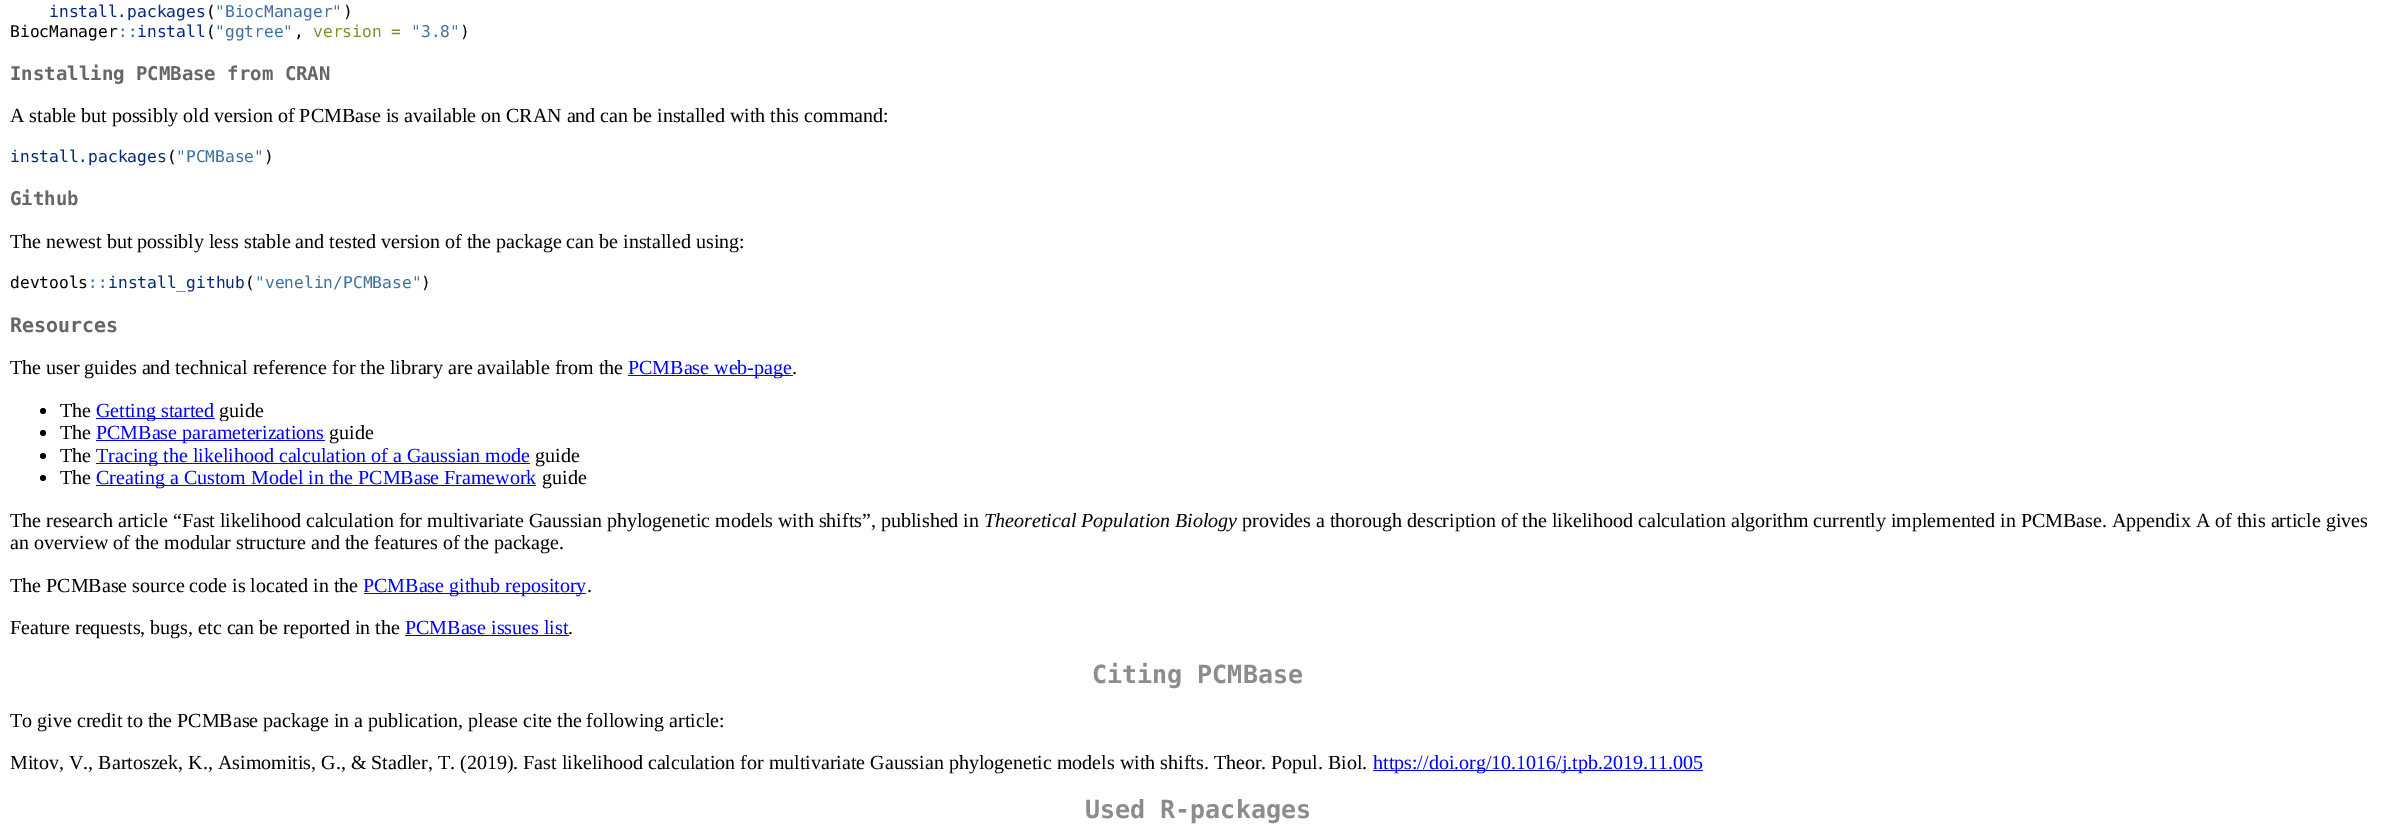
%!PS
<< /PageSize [2394 837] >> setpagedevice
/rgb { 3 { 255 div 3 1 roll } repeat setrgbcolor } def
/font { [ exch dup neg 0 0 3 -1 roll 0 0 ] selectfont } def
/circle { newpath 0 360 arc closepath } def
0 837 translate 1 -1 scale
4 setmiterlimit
255 255 255 rgb
0 0 2394 837 rectfill
0 0 255 rgb
628 375 165 1 rectfill
0 0 0 rgb
43 411 3 circle fill
0 0 255 rgb
96 418 119 1 rectfill
0 0 0 rgb
43 433 3 circle fill
0 0 255 rgb
96 440 229 1 rectfill
0 0 0 rgb
43 456 3 circle fill
0 0 255 rgb
96 463 434 1 rectfill
0 0 0 rgb
43 478 3 circle fill
[
  [96 485 440 1 0 0 255]
  [364 593 222 1 0 0 255]
  [405 635 164 1 0 0 255]
  [1373 770 330 1 0 0 255]
] { aload pop rgb rectfill } forall
/DejaVuSansMono-Regular 16.25 font
6 40 126 rgb
49 17 moveto (install.packages) show
0 0 0 rgb
206 17 moveto (\() show
64 112 160 rgb
215 17 moveto ("BiocManager") show
0 0 0 rgb
343 17 moveto (\)) show
10 37 moveto (BiocManager) show
64 112 160 rgb
118 37 moveto (::) show
6 40 126 rgb
137 37 moveto (install) show
0 0 0 rgb
206 37 moveto (\() show
64 112 160 rgb
215 37 moveto ("ggtree") show
0 0 0 rgb
294 37 moveto (,) show
125 144 41 rgb
313 37 moveto (version =) show
64 112 160 rgb
411 37 moveto ("3.8") show
0 0 0 rgb
460 37 moveto (\)) show
/DejaVuSansMono-Bold 19 font
102 102 102 rgb
10 80 moveto (Installing PCMBase from CRAN) show
/LiberationSerif-Regular 20 font
0 0 0 rgb
10 122 moveto (A stable but possibly old version of PCMBase is available on CRAN and can be installed with this command:) show
/DejaVuSansMono-Regular 16.25 font
6 40 126 rgb
10 162 moveto (install.packages) show
0 0 0 rgb
167 162 moveto (\() show
64 112 160 rgb
176 162 moveto ("PCMBase") show
0 0 0 rgb
264 162 moveto (\)) show
/DejaVuSansMono-Bold 19 font
102 102 102 rgb
10 205 moveto (Github) show
/LiberationSerif-Regular 20 font
0 0 0 rgb
10 248 moveto (The newest but possibly less stable and tested version of the package can be installed using:) show
/DejaVuSansMono-Regular 16.25 font
10 288 moveto (devtools) show
64 112 160 rgb
88 288 moveto (::) show
6 40 126 rgb
108 288 moveto (install_github) show
0 0 0 rgb
245 288 moveto (\() show
64 112 160 rgb
255 288 moveto ("venelin/PCMBase") show
0 0 0 rgb
421 288 moveto (\)) show
/DejaVuSansMono-Bold 20 font
102 102 102 rgb
10 332 moveto (Resources) show
/LiberationSerif-Regular 20 font
0 0 0 rgb
10 374 moveto (The user guides and technical reference for the library are available from the) show
0 0 255 rgb
628 374 moveto (PCMBase web-page) show
0 0 0 rgb
792 374 moveto (.) show
60 417 moveto (The) show
0 0 255 rgb
96 417 moveto (Getting started) show
0 0 0 rgb
219 417 moveto (guide) show
60 439 moveto (The) show
0 0 255 rgb
96 439 moveto (PCMBase parameterizations) show
255 255 255 rgb
148 421 79 1 rectfill
0 0 0 rgb
329 439 moveto (guide) show
60 462 moveto (The) show
0 0 255 rgb
96 462 moveto (Tracing the likelihood calculation of a Gaussian mode) show
0 0 0 rgb
535 462 moveto (guide) show
60 484 moveto (The) show
0 0 255 rgb
96 484 moveto (Creating a Custom Model in the PCMBase Framework) show
255 255 255 rgb
151 466 4 1 rectfill
0 0 0 rgb
542 484 moveto (guide) show
10 527 moveto (The research article “Fast likelihood calculation for multivariate Gaussian phylogenetic models with shifts”, published in) show
/LiberationSerif-Italic 20 font
984 527 moveto (Theoretical Population Biology) show
/LiberationSerif-Regular 20 font
[
  [(provides a thorough description of the likelihood calculation algorithm currently implemented in PCMBase. Appendix A of this article gives) 1242 527]
  [(an overview of the modular structure and the features of the package.) 10 549]
  [(The PCMBase source code is located in the) 10 592]
] { aload pop moveto show } forall
0 0 255 rgb
363 592 moveto (PCMBase github repository) show
0 0 0 rgb
587 592 moveto (.) show
10 634 moveto (Feature requests, bugs, etc can be reported in the) show
0 0 255 rgb
405 634 moveto (PCMBase issues list) show
0 0 0 rgb
568 634 moveto (.) show
/DejaVuSansMono-Bold 25 font
140 140 140 rgb
1092 683 moveto (Citing PCMBase) show
/LiberationSerif-Regular 20 font
0 0 0 rgb
10 727 moveto (To give credit to the PCMBase package in a publication, please cite the following article:) show
10 769 moveto (Mitov, V., Bartoszek, K., Asimomitis, G., & Stadler, T. \(2019\). Fast likelihood calculation for multivariate Gaussian phylogenetic models with shifts. Theor. Popul. Biol.) show
0 0 255 rgb
1373 769 moveto (https://doi.org/10.1016/j.tpb.2019.11.005) show
/DejaVuSansMono-Bold 25 font
140 140 140 rgb
1085 818 moveto (Used R-packages) show
showpage
